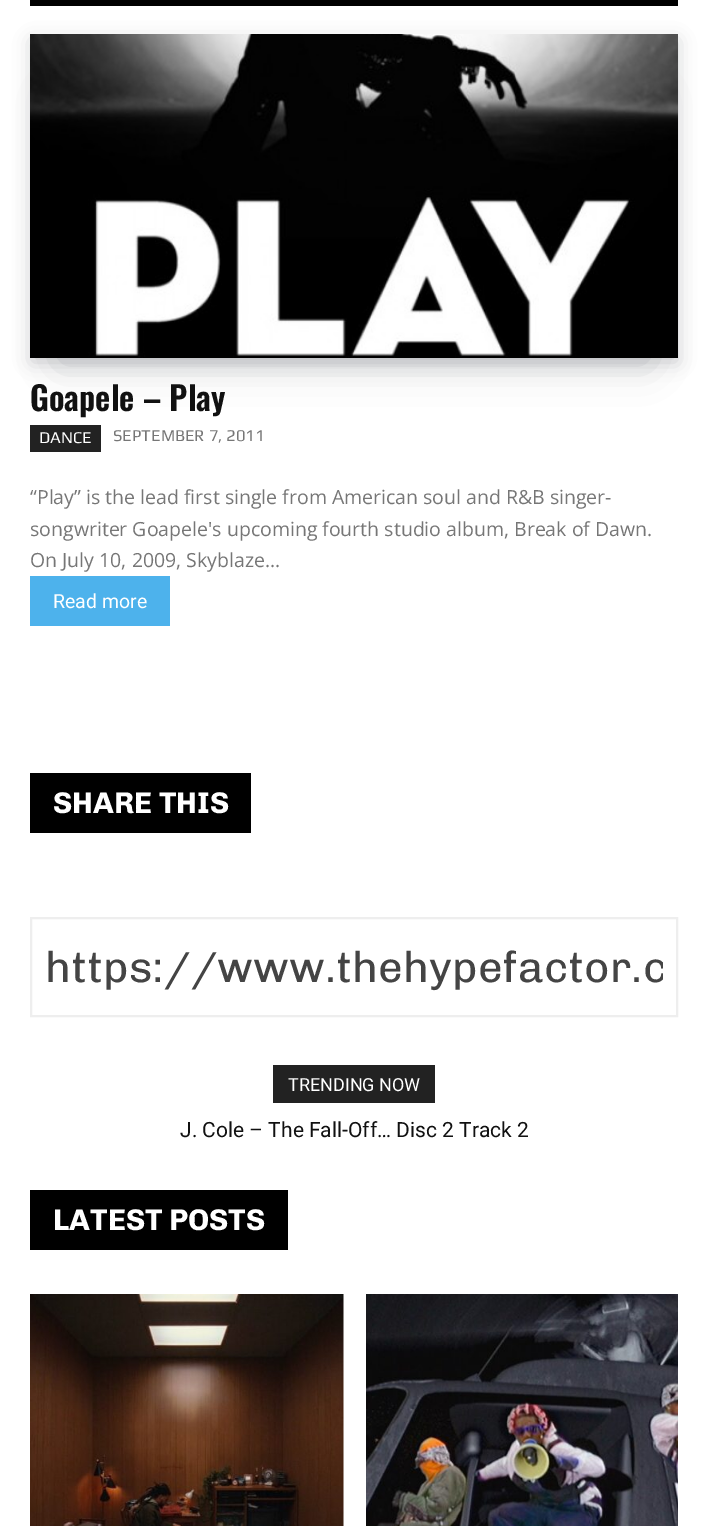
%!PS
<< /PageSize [708 1526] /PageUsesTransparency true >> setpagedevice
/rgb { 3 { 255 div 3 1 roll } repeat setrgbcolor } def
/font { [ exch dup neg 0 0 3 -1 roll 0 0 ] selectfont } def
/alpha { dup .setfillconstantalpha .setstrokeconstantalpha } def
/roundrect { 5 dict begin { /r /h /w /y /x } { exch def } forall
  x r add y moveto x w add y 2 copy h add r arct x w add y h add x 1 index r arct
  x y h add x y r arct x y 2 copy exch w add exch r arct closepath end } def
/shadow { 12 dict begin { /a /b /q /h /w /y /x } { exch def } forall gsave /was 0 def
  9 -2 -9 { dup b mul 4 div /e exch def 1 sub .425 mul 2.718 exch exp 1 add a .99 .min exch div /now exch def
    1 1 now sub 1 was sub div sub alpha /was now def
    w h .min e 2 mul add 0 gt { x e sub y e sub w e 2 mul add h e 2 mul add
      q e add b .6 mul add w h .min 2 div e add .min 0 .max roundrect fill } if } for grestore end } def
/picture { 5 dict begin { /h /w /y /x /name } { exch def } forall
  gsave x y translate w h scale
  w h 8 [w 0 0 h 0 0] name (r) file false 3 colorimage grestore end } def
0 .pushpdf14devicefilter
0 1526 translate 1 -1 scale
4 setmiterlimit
255 255 255 rgb
0 0 708 1526 rectfill
0 0 0 rgb
30 0 648 6 rectfill
7 10 25 rgb
60 98 588 264 0 20 0.2 shadow
32 41 645 321 0 9 0.2 shadow
(img/1.rgb) 30 34 648 324 picture
[
  [30 425 71 27 34 34 34]
  [30 576 140 50 77 178 236]
  [30 773 221 60 0 0 0]
] { aload pop rgb rectfill } forall
238 238 238 rgb
2 setlinewidth
31 918 646 98 rectstroke
34 34 34 rgb
273 1065 162 38 rectfill
0 0 0 rgb
30 1190 258 60 rectfill
(img/2.rgb) 30 1294 314 232 picture
(img/3.rgb) 366 1294 312 232 picture
/Oswald-SemiBold 33 font
17 17 17 rgb
30 411 moveto (Goapele – Play) show
/Play-Regular 16.5 font
255 255 255 rgb
39 443 moveto (DANCE) show
118 118 118 rgb
113 441 moveto (SEPTEMBER 7, 2011) show
/OpenSans-Regular 19.5 font
[
  [(“Play” is the lead first single from American soul and R&B singer-) 30 504]
  [(songwriter Goapele's upcoming fourth studio album, Break of Dawn.) 30 536]
  [(On July 10, 2009, Skyblaze...) 30 567]
] { aload pop moveto show } forall
/Roboto-Regular 19.5 font
255 255 255 rgb
53 608 moveto (Read more) show
/Chivo-Bold 30 font
53 813 moveto (SHARE THIS) show
gsave
45 942 618 51 rectclip
/Chivo-Regular 43.5 font
68 68 68 rgb
45 982 moveto (https://www.thehypefactor.c) show
grestore
/Roboto-Regular 18 font
288 1091 moveto (TRENDING NOW) show
/Roboto-Regular 21 font
17 17 17 rgb
180 1137 moveto (J. Cole – The Fall-Off… Disc 2 Track 2) show
/Chivo-Bold 30 font
255 255 255 rgb
53 1230 moveto (LATEST POSTS) show
.poppdf14devicefilter showpage
